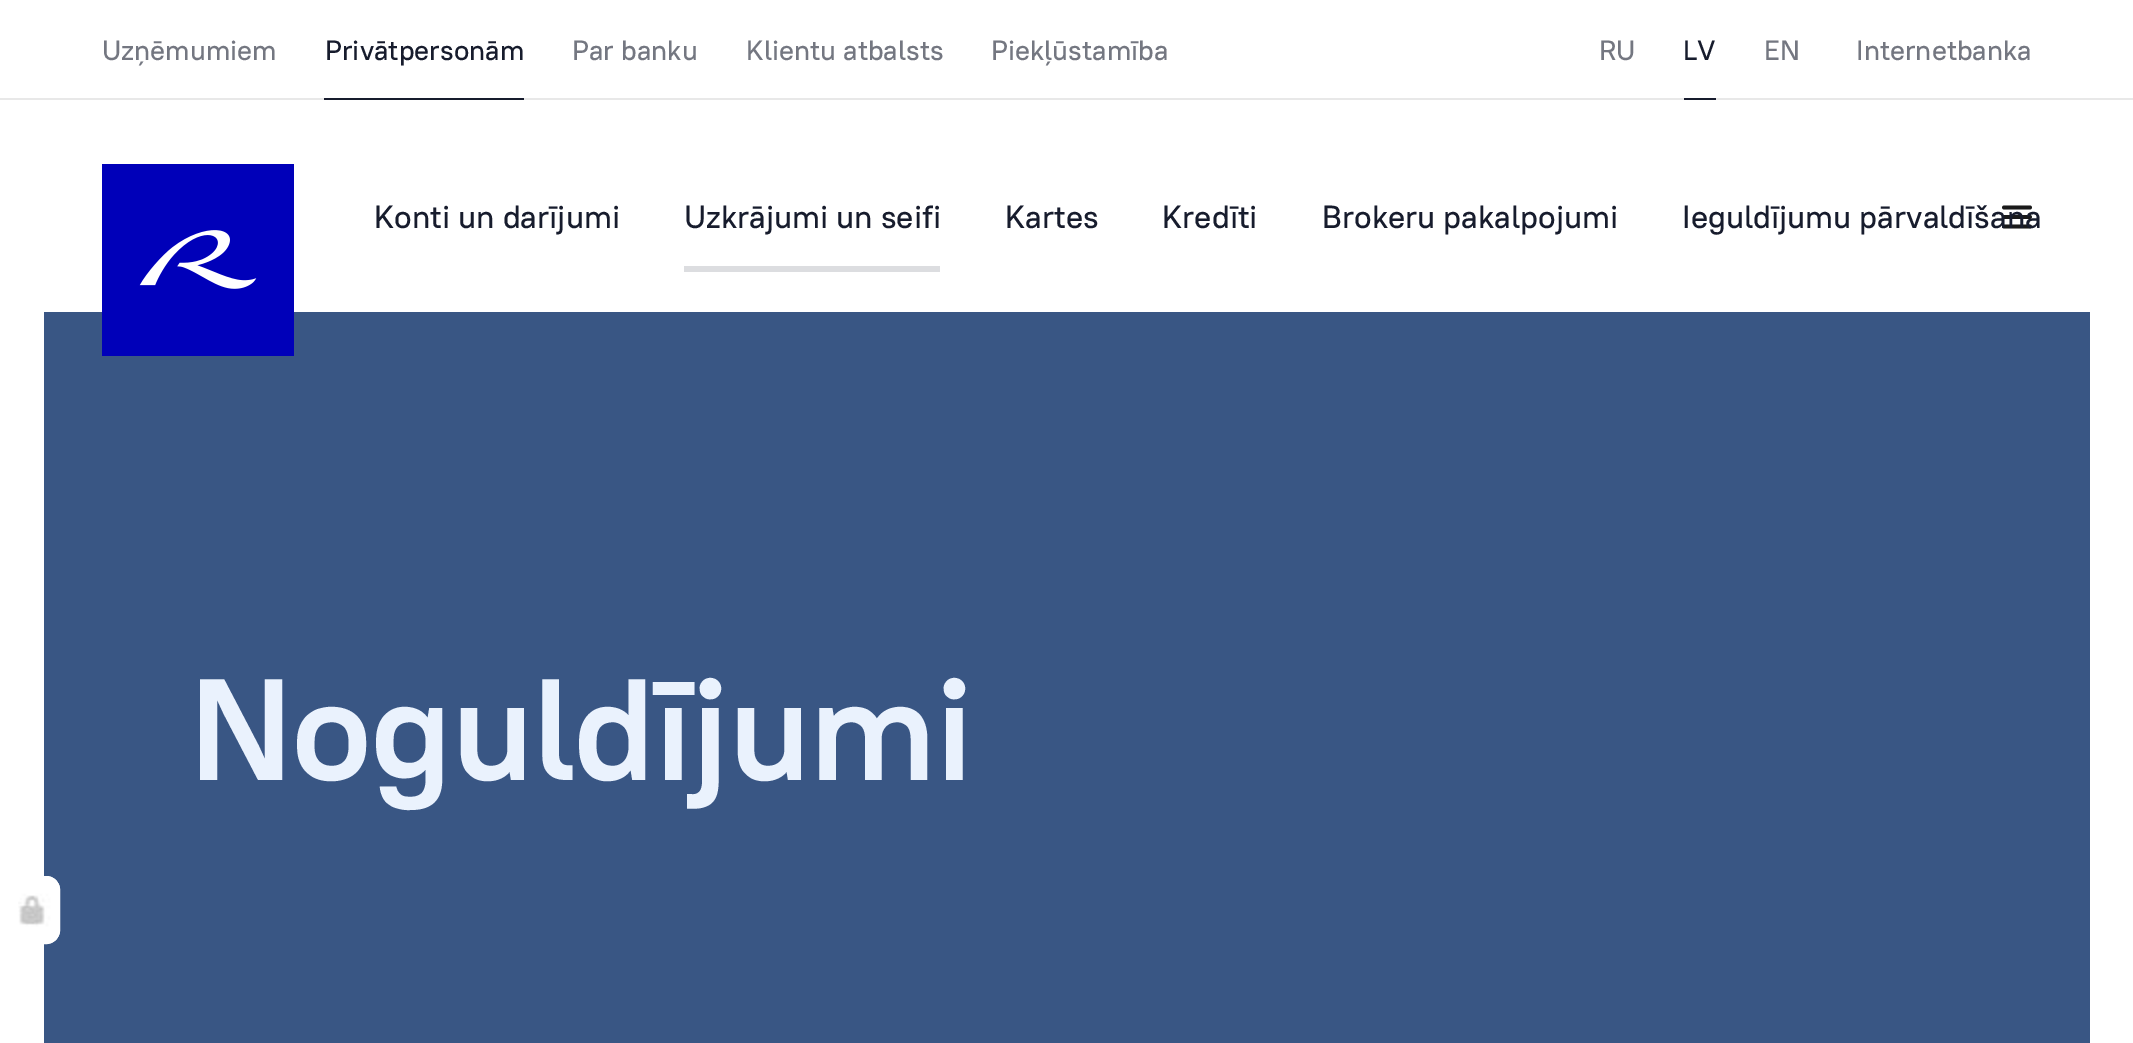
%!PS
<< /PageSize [2133 1043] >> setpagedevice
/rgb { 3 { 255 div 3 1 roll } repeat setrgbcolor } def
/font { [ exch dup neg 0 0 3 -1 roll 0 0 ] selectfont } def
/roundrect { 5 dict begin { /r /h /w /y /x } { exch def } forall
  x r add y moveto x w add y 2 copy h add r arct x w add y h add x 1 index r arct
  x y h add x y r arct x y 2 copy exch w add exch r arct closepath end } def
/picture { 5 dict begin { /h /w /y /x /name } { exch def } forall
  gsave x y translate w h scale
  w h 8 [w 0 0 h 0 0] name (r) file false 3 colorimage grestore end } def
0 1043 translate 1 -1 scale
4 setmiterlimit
255 255 255 rgb
0 0 2133 1043 rectfill
[
  [0 98 2133 2 232 232 232]
  [324 98 200 2 23 28 45]
  [1684 98 32 2 23 28 45]
  [44 312 2046 731 57 86 132]
  [102 164 192 192 0 0 185]
] { aload pop rgb rectfill } forall
(img/1.rgb) 139 230 118 59 picture
220 221 224 rgb
684 266 256 6 rectfill
26 26 26 rgb
3.8 setlinewidth
1 setlinecap
2004 207.5 moveto 2030 207.5 lineto 2004 217 moveto 2030 217 lineto 2004 226.5 moveto 2030 226.5 lineto stroke
255 255 255 rgb
0 876 60 68 14 roundrect fill
(img/2.rgb) 18 878 42 64 picture
2 setlinewidth
0 setlinecap
1 877 58 66 13 roundrect stroke
/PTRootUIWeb-Medium 28 font
116 119 129 rgb
102 60 moveto (Uzņēmumiem) show
23 28 45 rgb
325 60 moveto (Privātpersonām) show
116 119 129 rgb
[
  [(Par banku) 572 60]
  [(Klientu atbalsts) 746 60]
  [(Piekļūstamība) 991 60]
  [(RU) 1599 60]
] { aload pop moveto show } forall
23 28 45 rgb
1683 60 moveto (LV) show
116 119 129 rgb
1764 60 moveto (EN) show
1856 60 moveto (Internetbanka) show
/PTRootUIWeb-Medium 32 font
23 28 45 rgb
[
  [(Konti un darījumi) 374 228]
  [(Uzkrājumi un seifi) 684 228]
  [(Kartes) 1005 228]
  [(Kredīti) 1162 228]
  [(Brokeru pakalpojumi) 1322 228]
  [(Ieguldījumu pārvaldīšana) 1682 228]
] { aload pop moveto show } forall
/PTRootUIWeb-Bold 144 font
234 242 253 rgb
190 780 moveto (Noguldījumi) show
showpage
